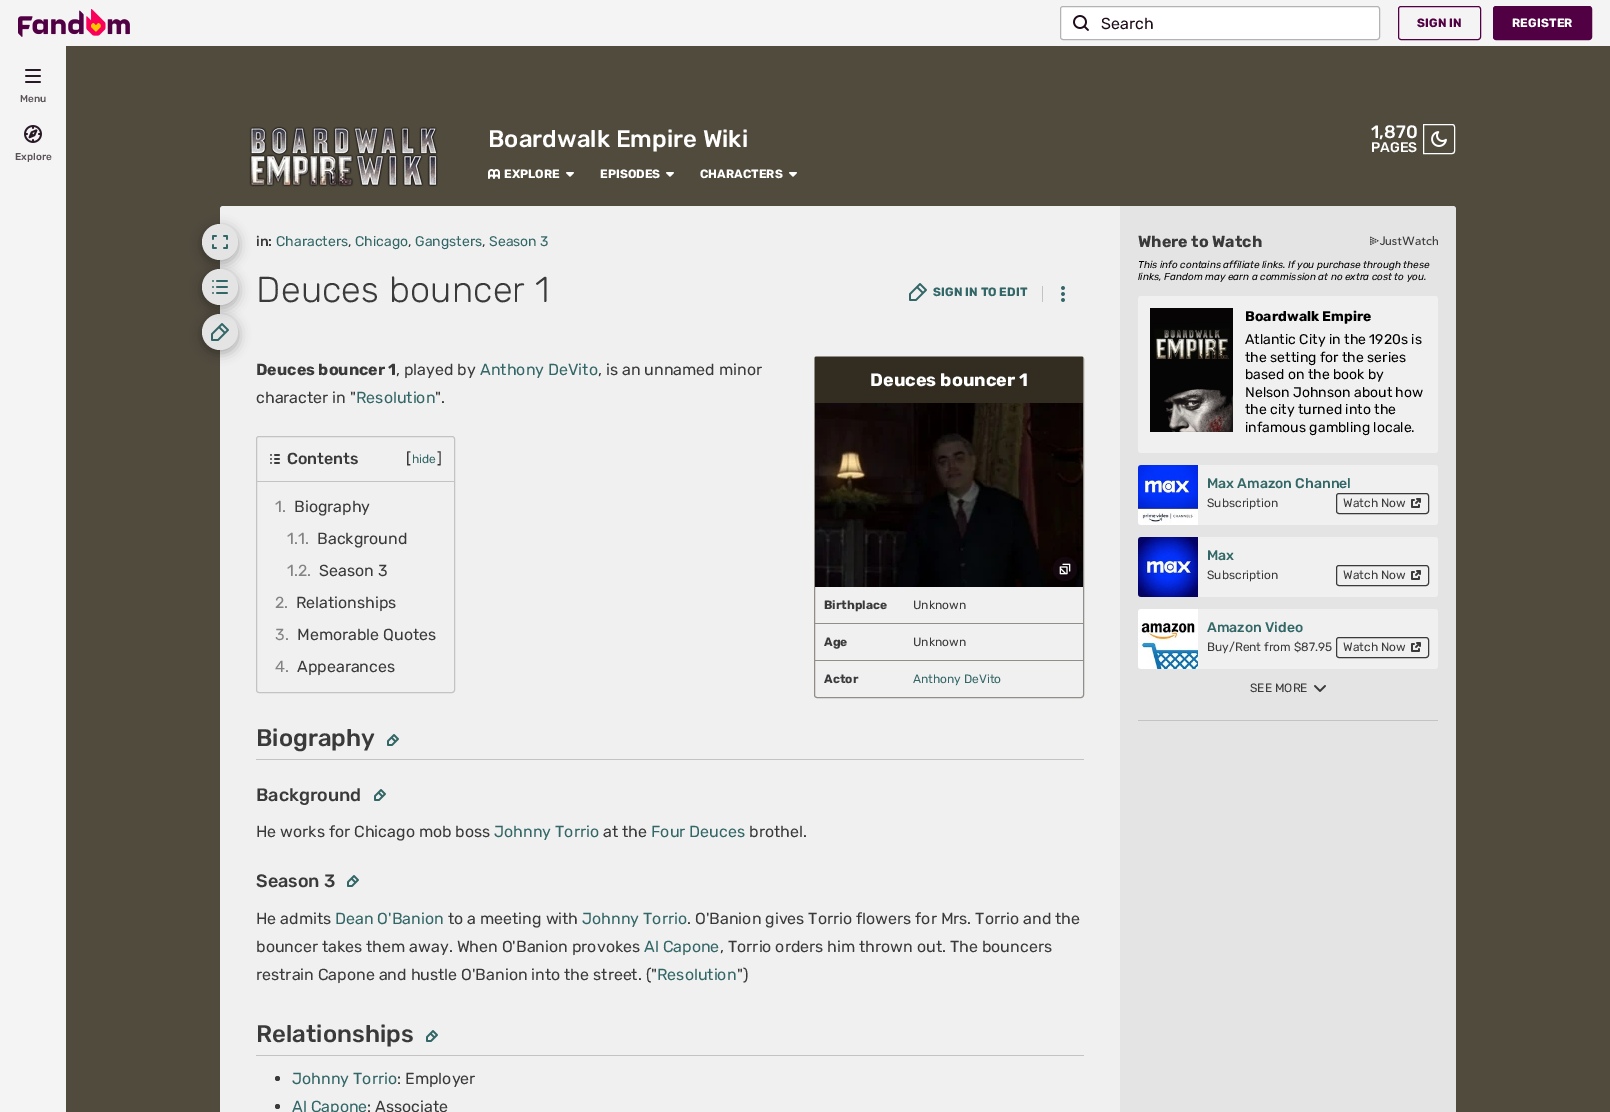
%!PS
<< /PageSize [1610 1112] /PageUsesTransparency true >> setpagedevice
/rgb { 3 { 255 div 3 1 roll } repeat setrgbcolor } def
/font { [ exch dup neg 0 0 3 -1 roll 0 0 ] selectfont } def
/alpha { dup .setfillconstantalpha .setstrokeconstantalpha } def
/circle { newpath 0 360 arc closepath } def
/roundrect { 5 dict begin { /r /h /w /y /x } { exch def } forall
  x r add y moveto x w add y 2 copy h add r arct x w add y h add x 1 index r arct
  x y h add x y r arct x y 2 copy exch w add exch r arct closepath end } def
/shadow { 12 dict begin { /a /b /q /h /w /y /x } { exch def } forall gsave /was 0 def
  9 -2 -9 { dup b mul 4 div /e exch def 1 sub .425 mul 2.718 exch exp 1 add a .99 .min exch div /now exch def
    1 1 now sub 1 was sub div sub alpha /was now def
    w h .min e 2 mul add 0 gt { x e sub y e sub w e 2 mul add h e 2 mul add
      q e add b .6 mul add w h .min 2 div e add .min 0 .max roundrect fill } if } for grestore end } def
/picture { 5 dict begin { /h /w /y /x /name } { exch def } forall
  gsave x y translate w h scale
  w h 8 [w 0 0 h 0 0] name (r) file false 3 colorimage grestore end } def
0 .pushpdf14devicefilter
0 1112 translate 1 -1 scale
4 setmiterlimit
81 75 62 rgb
0 0 1610 1112 rectfill
244 244 244 rgb
0 0 1610 46 rectfill
(img/1.rgb) 18 9 112 28 picture
255 255 255 rgb
1060.5 6.5 319 33 2.5 roundrect gsave fill grestore
179 179 179 rgb
stroke
(img/2.rgb) 1073 15 16 16 picture
82 0 68 rgb
1398.5 6.5 82 33 2.5 roundrect stroke
1493.5 6.5 98 33 2.5 roundrect gsave fill grestore
stroke
244 244 244 rgb
0 46 66 1066 rectfill
(img/3.rgb) 25 69 16 14 picture
(img/4.rgb) 24 125 18 18 picture
(img/5.rgb) 249 126 189 61 picture
255 255 255 rgb
1423.5 124.5 moveto 1452 124.5 lineto 1453.5 124.5 1454.5 125.5 1454.5 127 curveto 1454.5 151 lineto 1454.5 152.5 1453.5 153.5 1452 153.5 curveto 1423.5 153.5 lineto closepath stroke
(img/6.rgb) 1431 131 16 16 picture
(img/7.rgb) 488 169 12 10 picture
(img/8.rgb) 566 172 8 5 picture
(img/8.rgb) 666 172 8 5 picture
(img/8.rgb) 789 172 8 5 picture
240 240 240 rgb
223 206 moveto 1120 206 lineto 1120 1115 lineto 223 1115 lineto 221.5 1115 220 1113.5 220 1112 curveto 220 209 lineto 220 207.5 221.5 206 223 206 curveto closepath fill
0 0 0 rgb
202 227 36 36 18 6 0.3 shadow
228 228 228 rgb
220 242 18 circle fill
(img/9.rgb) 212 235 16 14 picture
0 0 0 rgb
202 317 36 36 18 6 0.3 shadow
228 228 228 rgb
220 332 18 circle fill
(img/11.rgb) 211 323 18 18 picture
0 0 0 rgb
202 272 36 36 18 6 0.3 shadow
228 228 228 rgb
220 287 18 circle fill
(img/10.rgb) 212 280 16 14 picture
(img/12.rgb) 909 283 18 18 picture
195 195 195 rgb
1042 286 1 16 rectfill
(img/13.rgb) 1061 286 4 16 picture
145 142 137 rgb
814.5 356.5 269 341 2.5 roundrect stroke
50 44 33 rgb
815 357 268 46 rectfill
(img/14.rgb) 815 403 268 184 picture
0.5 alpha
30 12 27 rgb
1065 569 12 circle fill
1 alpha
(img/15.rgb) 1059 563 12 12 picture
145 142 137 rgb
815 623 268 1 rectfill
815 660 268 1 rectfill
195 195 195 rgb
256.5 436.5 198 256 2.5 roundrect stroke
257 481 197 1 rectfill
(img/16.rgb) 270 454 10 10 picture
256 759 828 1 rectfill
(img/17.rgb) 387 734 12 12 picture
(img/17.rgb) 374 789 12 12 picture
(img/17.rgb) 347 875 12 12 picture
256 1055 828 1 rectfill
(img/17.rgb) 426 1030 12 12 picture
58 58 58 rgb
277.5 1078.5 2.5 circle fill
277.5 1106.5 2.5 circle fill
228 228 228 rgb
1120 206 moveto 1453 206 lineto 1454.5 206 1456 207.5 1456 209 curveto 1456 1112 lineto 1456 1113.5 1454.5 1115 1453 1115 curveto 1120 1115 lineto closepath fill
195 195 195 rgb
1138 720 300 1 rectfill
(img/18.rgb) 1370 236 68 10 picture
240 240 240 rgb
1138 296 300 157 3 roundrect fill
(img/19.rgb) 1150 308 83 124 picture
(img/20.rgb) 1138 465 60 60 picture
1198 465 moveto 1435 465 lineto 1436.5 465 1438 466.5 1438 468 curveto 1438 522 lineto 1438 523.5 1436.5 525 1435 525 curveto 1198 525 lineto closepath fill
58 58 58 rgb
1336.5 493.5 92 20 2.5 roundrect stroke
(img/21.rgb) 1411 498 10 10 picture
(img/22.rgb) 1138 537 60 60 picture
240 240 240 rgb
1198 537 moveto 1435 537 lineto 1436.5 537 1438 538.5 1438 540 curveto 1438 594 lineto 1438 595.5 1436.5 597 1435 597 curveto 1198 597 lineto closepath fill
58 58 58 rgb
1336.5 565.5 92 20 2.5 roundrect stroke
(img/21.rgb) 1411 570 10 10 picture
(img/23.rgb) 1138 609 60 60 picture
240 240 240 rgb
1198 609 moveto 1435 609 lineto 1436.5 609 1438 610.5 1438 612 curveto 1438 666 lineto 1438 667.5 1436.5 669 1435 669 curveto 1198 669 lineto closepath fill
58 58 58 rgb
1336.5 637.5 92 20 2.5 roundrect stroke
(img/21.rgb) 1411 642 10 10 picture
(img/24.rgb) 1314 685 12 7 picture
/Rubik-Regular 16 font
30 12 27 rgb
1101 29 moveto (Search) show
/Rubik-Bold 12 font
82 0 68 rgb
1417 27 moveto 0.1 0 (SIGN IN) ashow
255 255 255 rgb
1512 27 moveto 0.1 0 (REGISTER) ashow
/Rubik-Medium 10 font
89 83 88 rgb
20 102 moveto (Menu) show
15 160 moveto (Explore) show
/Rubik-Medium 24 font
255 255 255 rgb
488 147 moveto (Boardwalk Empire Wiki) show
/Rubik-Medium 18 font
1371 138 moveto (1,870) show
/Rubik-Medium 14 font
1371 152 moveto (PAGES) show
/Rubik-Bold 12 font
[
  [(EXPLORE) 504 178]
  [(EPISODES) 600 178]
  [(CHARACTERS) 700 178]
] { aload pop moveto show } forall
/Rubik-Medium 14 font
58 58 58 rgb
256 246 moveto (in:) show
/Rubik-Regular 14 font
51 102 102 rgb
276 246 moveto (Characters) show
58 58 58 rgb
348 246 moveto (,) show
51 102 102 rgb
355 246 moveto (Chicago) show
58 58 58 rgb
408 246 moveto (,) show
51 102 102 rgb
415 246 moveto (Gangsters) show
58 58 58 rgb
482 246 moveto (,) show
51 102 102 rgb
489 246 moveto (Season 3) show
/Rubik-Light 36 font
58 58 58 rgb
256 302 moveto 0.25 0 (Deuces bouncer 1) ashow
/Rubik-Bold 12 font
51 102 102 rgb
933 296 moveto 0.1 0 (SIGN IN TO EDIT) ashow
/Rubik-Bold 16 font
58 58 58 rgb
256 375 moveto (Deuces bouncer 1) show
/Rubik-Regular 16 font
396 375 moveto (, played by) show
51 102 102 rgb
480 375 moveto (Anthony DeVito) show
58 58 58 rgb
598 375 moveto (, is an unnamed minor) show
256 403 moveto (character in ") show
51 102 102 rgb
356 403 moveto (Resolution) show
58 58 58 rgb
435 403 moveto (".) show
/Rubik-Bold 18 font
255 255 255 rgb
870 386 moveto (Deuces bouncer 1) show
/Rubik-Bold 12 font
58 58 58 rgb
824 609 moveto (Birthplace) show
/Rubik-Regular 12 font
913 609 moveto (Unknown) show
/Rubik-Bold 12 font
824 646 moveto (Age) show
/Rubik-Regular 12 font
913 646 moveto (Unknown) show
/Rubik-Bold 12 font
824 683 moveto (Actor) show
/Rubik-Regular 12 font
51 102 102 rgb
913 683 moveto (Anthony DeVito) show
/Rubik-Medium 16 font
58 58 58 rgb
287 464 moveto (Contents) show
/Rubik-Regular 15 font
406 463 moveto ([) show
/Rubik-Regular 12 font
51 102 102 rgb
412 463 moveto (hide) show
/Rubik-Regular 15 font
58 58 58 rgb
437 463 moveto (]) show
/Rubik-Regular 16 font
131 131 131 rgb
275 512 moveto (1.) show
58 58 58 rgb
294 512 moveto (Biography) show
131 131 131 rgb
287 544 moveto (1.1.) show
58 58 58 rgb
317 544 moveto (Background) show
131 131 131 rgb
287 576 moveto (1.2.) show
58 58 58 rgb
319 576 moveto (Season 3) show
131 131 131 rgb
275 608 moveto (2.) show
58 58 58 rgb
296 608 moveto (Relationships) show
131 131 131 rgb
275 640 moveto (3.) show
58 58 58 rgb
297 640 moveto (Memorable Quotes) show
131 131 131 rgb
275 672 moveto (4.) show
58 58 58 rgb
297 672 moveto (Appearances) show
/Rubik-Medium 24 font
256 746 moveto (Biography) show
/Rubik-Medium 18 font
256 801 moveto (Background) show
/Rubik-Regular 16 font
256 837 moveto (He works for Chicago mob boss) show
51 102 102 rgb
494 837 moveto (Johnny Torrio) show
58 58 58 rgb
603 837 moveto (at the) show
51 102 102 rgb
651 837 moveto (Four Deuces) show
58 58 58 rgb
749 837 moveto (brothel.) show
/Rubik-Medium 18 font
256 887 moveto (Season 3) show
/Rubik-Regular 16 font
256 924 moveto (He admits) show
51 102 102 rgb
335 924 moveto (Dean O'Banion) show
58 58 58 rgb
448 924 moveto (to a meeting with) show
51 102 102 rgb
582 924 moveto (Johnny Torrio) show
58 58 58 rgb
687 924 moveto (. O'Banion gives Torrio flowers for Mrs. Torrio and the) show
256 952 moveto (bouncer takes them away. When O'Banion provokes) show
51 102 102 rgb
644 952 moveto (Al Capone) show
58 58 58 rgb
720 952 moveto (, Torrio orders him thrown out. The bouncers) show
256 980 moveto (restrain Capone and hustle O'Banion into the street. \(") show
51 102 102 rgb
657 980 moveto (Resolution) show
58 58 58 rgb
737 980 moveto ("\)) show
/Rubik-Medium 24 font
256 1042 moveto (Relationships) show
/Rubik-Regular 16 font
51 102 102 rgb
292 1084 moveto (Johnny Torrio) show
58 58 58 rgb
397 1084 moveto (: Employer) show
51 102 102 rgb
292 1112 moveto (Al Capone) show
58 58 58 rgb
367 1112 moveto (: Associate) show
/Rubik-Bold 16 font
1138 247 moveto (Where to Watch) show
/Rubik-Italic 10 font
0 0 0 rgb
1138 268 moveto (This info contains affiliate links. If you purchase through these) show
1138 280 moveto (links, Fandom may earn a commission at no extra cost to you.) show
/Rubik-Bold 14 font
1245 321 moveto (Boardwalk Empire) show
/Rubik-Regular 14 font
[
  [(Atlantic City in the 1920s is) 1245 344]
  [(the setting for the series) 1245 362]
  [(based on the book by) 1245 379]
  [(Nelson Johnson about how) 1245 397]
  [(the city turned into the) 1245 414]
  [(infamous gambling locale.) 1245 432]
] { aload pop moveto show } forall
/Rubik-Medium 14 font
51 102 102 rgb
1207 488 moveto (Max Amazon Channel) show
/Rubik-Regular 12 font
58 58 58 rgb
1207 507 moveto (Subscription) show
1343 507 moveto (Watch Now) show
/Rubik-Medium 14 font
51 102 102 rgb
1207 560 moveto (Max) show
/Rubik-Regular 12 font
58 58 58 rgb
1207 579 moveto (Subscription) show
1343 579 moveto (Watch Now) show
/Rubik-Medium 14 font
51 102 102 rgb
1207 632 moveto (Amazon Video) show
/Rubik-Regular 12 font
58 58 58 rgb
[
  [(Buy/Rent from $87.95) 1207 651]
  [(Watch Now) 1343 651]
  [(SEE MORE) 1250 692]
] { aload pop moveto show } forall
.poppdf14devicefilter showpage
